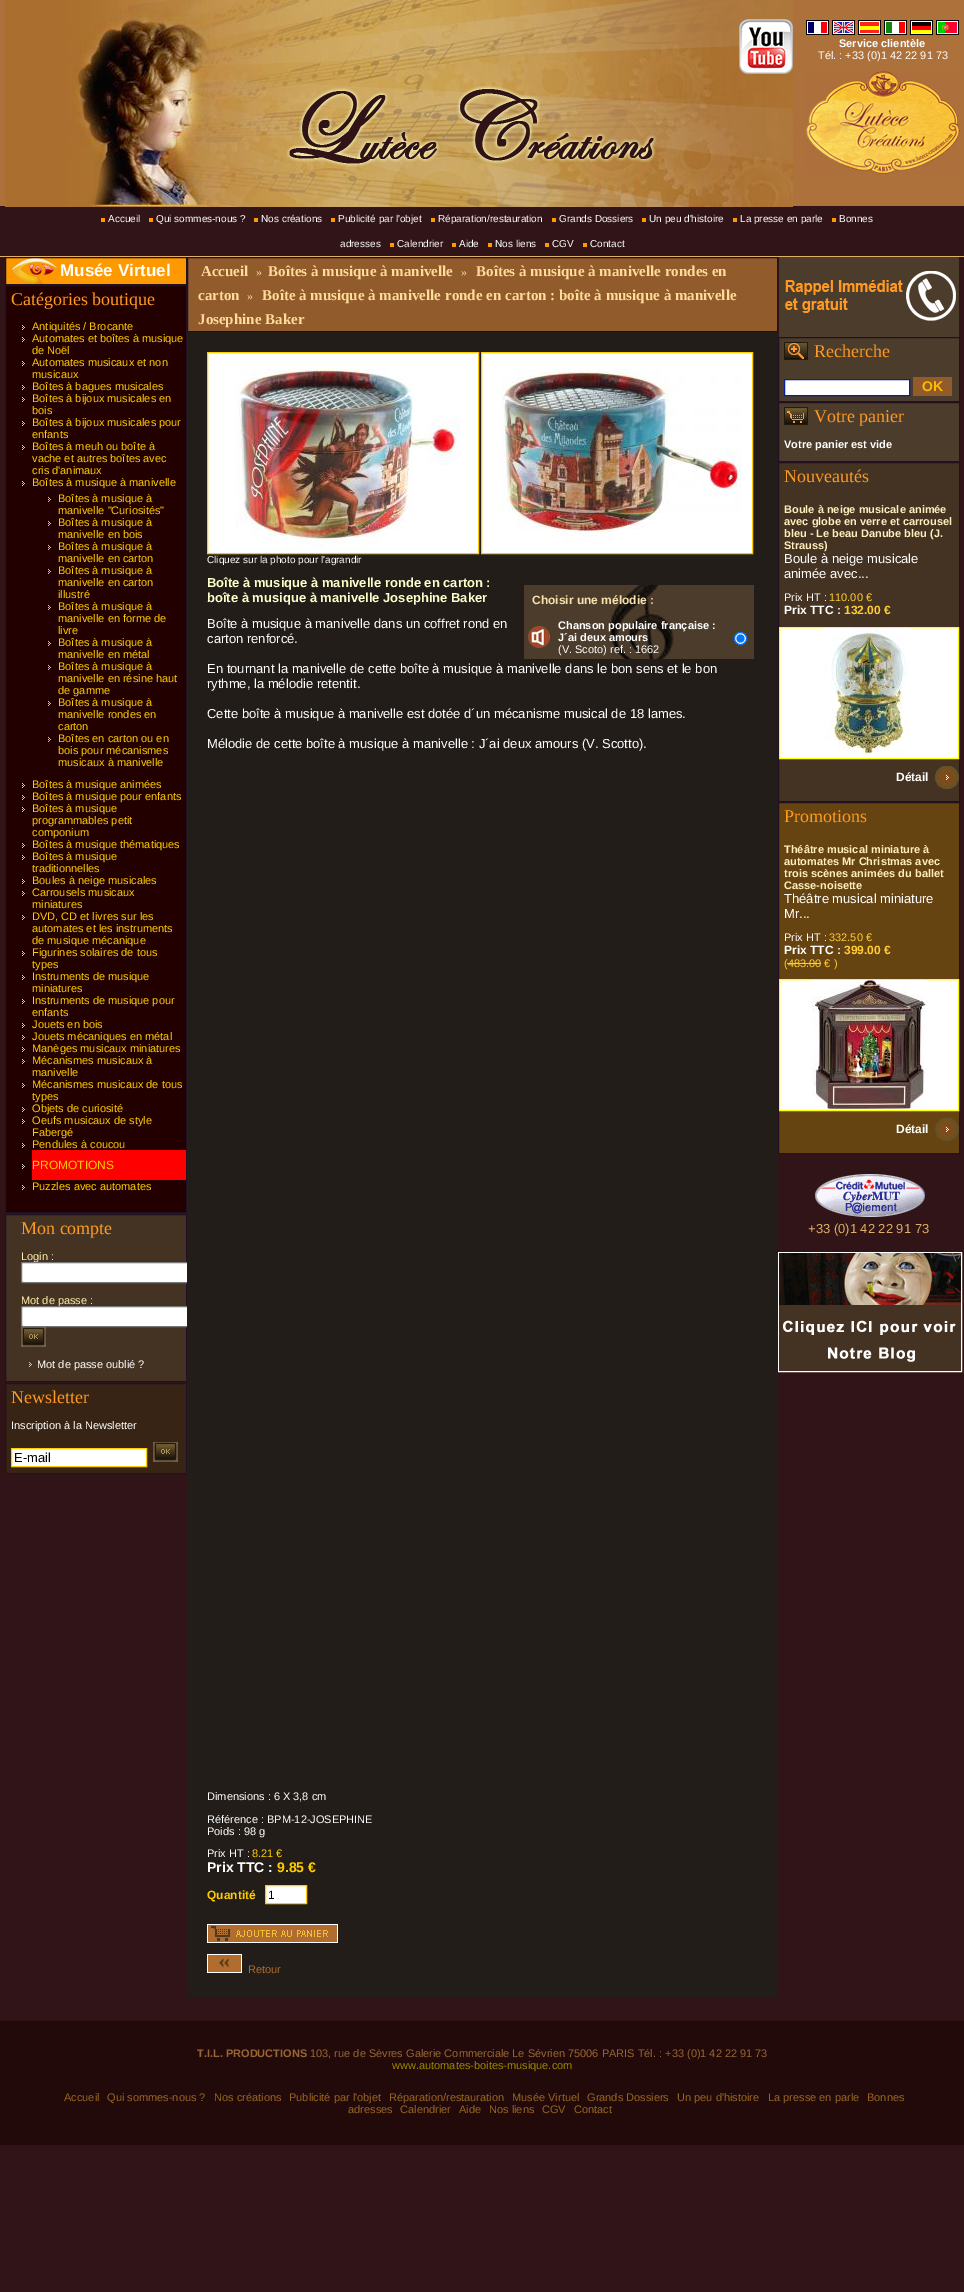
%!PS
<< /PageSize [964 2292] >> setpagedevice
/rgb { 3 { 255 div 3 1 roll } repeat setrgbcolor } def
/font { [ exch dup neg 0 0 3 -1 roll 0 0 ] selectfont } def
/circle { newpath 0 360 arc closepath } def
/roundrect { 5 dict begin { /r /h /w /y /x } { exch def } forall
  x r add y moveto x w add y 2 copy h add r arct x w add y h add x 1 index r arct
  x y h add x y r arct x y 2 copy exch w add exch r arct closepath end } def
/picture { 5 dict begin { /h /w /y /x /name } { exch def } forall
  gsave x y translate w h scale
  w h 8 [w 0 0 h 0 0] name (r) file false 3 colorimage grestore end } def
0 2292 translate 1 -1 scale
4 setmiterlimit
49 20 24 rgb
0 0 964 2292 rectfill
173 113 60 rgb
0 0 964 206 rectfill
(img/1.rgb) 5 0 788 207 picture
(img/2.rgb) 739 19 54 55 picture
(img/3.rgb) 806 20 23 15 picture
(img/4.rgb) 832 20 23 15 picture
(img/5.rgb) 858 20 23 15 picture
(img/6.rgb) 884 20 23 15 picture
(img/7.rgb) 910 20 23 15 picture
(img/8.rgb) 936 20 23 15 picture
(img/9.rgb) 806 71 154 103 picture
(img/10.rgb) 286 85 371 82 picture
[
  [0 256 964 1 223 175 101]
  [101 218 4 4 255 153 0]
  [149 218 4 4 255 153 0]
  [254 218 4 4 255 153 0]
  [331 218 4 4 255 153 0]
  [431 218 4 4 255 153 0]
  [552 218 4 4 255 153 0]
  [642 218 4 4 255 153 0]
  [733 218 4 4 255 153 0]
  [832 218 4 4 255 153 0]
  [390 243 4 4 255 153 0]
  [452 243 4 4 255 153 0]
  [488 243 4 4 255 153 0]
  [545 243 4 4 255 153 0]
  [583 243 4 4 255 153 0]
  [6 258 180 26 255 153 0]
] { aload pop rgb rectfill } forall
(img/11.rgb) 11 258 48 26 picture
34 17 34 rgb
5.5 257.5 181 27 rectstroke
34 0 0 rgb
5.5 285.5 moveto 186.5 285.5 lineto 186.5 1212.5 lineto 5.5 1212.5 lineto closepath gsave fill grestore
34 17 34 rgb
stroke
(img/12.rgb) 22 325 3 5 picture
(img/12.rgb) 22 337 3 5 picture
(img/12.rgb) 22 361 3 5 picture
(img/12.rgb) 22 385 3 5 picture
(img/12.rgb) 22 397 3 5 picture
(img/12.rgb) 22 421 3 5 picture
(img/12.rgb) 22 445 3 5 picture
(img/12.rgb) 22 481 3 5 picture
(img/12.rgb) 48 497 3 5 picture
(img/12.rgb) 48 521 3 5 picture
(img/12.rgb) 48 545 3 5 picture
(img/12.rgb) 48 569 3 5 picture
(img/12.rgb) 48 605 3 5 picture
(img/12.rgb) 48 641 3 5 picture
(img/12.rgb) 48 665 3 5 picture
(img/12.rgb) 48 701 3 5 picture
(img/12.rgb) 48 737 3 5 picture
(img/12.rgb) 22 783 3 5 picture
(img/12.rgb) 22 795 3 5 picture
(img/12.rgb) 22 807 3 5 picture
(img/12.rgb) 22 843 3 5 picture
(img/12.rgb) 22 855 3 5 picture
(img/12.rgb) 22 879 3 5 picture
(img/12.rgb) 22 891 3 5 picture
(img/12.rgb) 22 915 3 5 picture
(img/12.rgb) 22 951 3 5 picture
(img/12.rgb) 22 975 3 5 picture
(img/12.rgb) 22 999 3 5 picture
(img/12.rgb) 22 1023 3 5 picture
(img/12.rgb) 22 1035 3 5 picture
(img/12.rgb) 22 1047 3 5 picture
(img/12.rgb) 22 1059 3 5 picture
(img/12.rgb) 22 1083 3 5 picture
(img/12.rgb) 22 1107 3 5 picture
(img/12.rgb) 22 1119 3 5 picture
(img/12.rgb) 22 1143 3 5 picture
255 0 0 rgb
32 1150 154 30 rectfill
(img/12.rgb) 22 1164 3 5 picture
(img/12.rgb) 22 1185 3 5 picture
68 51 34 rgb
5.5 1214.5 moveto 186.5 1214.5 lineto 186.5 1381.5 lineto 5.5 1381.5 lineto closepath gsave fill grestore
34 17 34 rgb
stroke
(img/13.rgb) 21 1327 25 20 picture
(img/14.rgb) 29 1362 3 5 picture
55 36 21 rgb
5.5 1383.5 moveto 186.5 1383.5 lineto 186.5 1473.5 lineto 5.5 1473.5 lineto closepath gsave fill grestore
34 17 34 rgb
stroke
255 255 255 rgb
11.5 1448.5 moveto 146.5 1448.5 lineto 146.5 1466.5 lineto 11.5 1466.5 lineto closepath gsave fill grestore
255 204 0 rgb
stroke
(img/13.rgb) 153 1442 25 20 picture
145 91 44 rgb
187.5 257.5 moveto 777.5 257.5 lineto 777.5 331.5 lineto 187.5 331.5 lineto closepath gsave fill grestore
34 17 34 rgb
stroke
76 60 44 rgb
779 257 180 80 rectfill
(img/21.rgb) 785 271 171 50 picture
778.5 337.5 moveto 959.5 337.5 lineto 959.5 401.5 lineto 778.5 401.5 lineto closepath gsave fill grestore
34 17 34 rgb
stroke
(img/22.rgb) 784 342 24 18 picture
255 255 255 rgb
784.5 379.5 moveto 909.5 379.5 lineto 909.5 395.5 lineto 784.5 395.5 lineto closepath gsave fill grestore
0 34 170 rgb
stroke
145 91 44 rgb
913 377 39 19 rectfill
76 60 44 rgb
778.5 402.5 moveto 959.5 402.5 lineto 959.5 461.5 lineto 778.5 461.5 lineto closepath gsave fill grestore
34 17 34 rgb
stroke
(img/23.rgb) 784 407 24 18 picture
68 51 34 rgb
778.5 462.5 moveto 959.5 462.5 lineto 959.5 801.5 lineto 778.5 801.5 lineto closepath gsave fill grestore
34 17 34 rgb
stroke
255 255 255 rgb
779.5 627.5 moveto 958.5 627.5 lineto 958.5 758.5 lineto 779.5 758.5 lineto closepath gsave fill grestore
255 255 0 rgb
stroke
(img/24.rgb) 825 628 84 129 picture
(img/25.rgb) 935 766 24 23 picture
102 68 17 rgb
778.5 802.5 moveto 959.5 802.5 lineto 959.5 1153.5 lineto 778.5 1153.5 lineto closepath gsave fill grestore
34 17 34 rgb
stroke
255 204 51 rgb
787 963 34 1 rectfill
255 255 255 rgb
779.5 979.5 moveto 958.5 979.5 lineto 958.5 1110.5 lineto 779.5 1110.5 lineto closepath gsave fill grestore
255 255 0 rgb
stroke
(img/26.rgb) 812 980 114 130 picture
(img/27.rgb) 935 1118 24 23 picture
(img/28.rgb) 815 1174 110 43 picture
255 255 255 rgb
778.5 1252.5 183 119 rectstroke
(img/29.rgb) 779 1253 182 118 picture
34 10 10 rgb
0 2021 964 124 rectfill
/LiberationSans-Bold 11 font
255 255 255 rgb
839 47 moveto (Service clientèle) show
/LiberationSans-Regular 11 font
818 59 moveto (Tél. : +33 \(0\)1 42 22 91 73) show
/LiberationSans-Regular 10 font
[
  [(Accueil) 108 222]
  [(Qui sommes-nous ?) 156 222]
  [(Nos créations) 261 222]
  [(Publicité par l'objet) 338 222]
  [(Réparation/restauration) 438 222]
  [(Grands Dossiers) 559 222]
  [(Un peu d'histoire) 649 222]
  [(La presse en parle) 740 222]
  [(Bonnes) 839 222]
  [(adresses) 340 247]
  [(Calendrier) 397 247]
  [(Aide) 459 247]
  [(Nos liens) 495 247]
  [(CGV) 552 247]
  [(Contact) 590 247]
] { aload pop moveto show } forall
/LiberationSans-Bold 17 font
60 276 moveto (Musée Virtuel) show
/LiberationSerif-Regular 18 font
255 153 34 rgb
11 305 moveto (Catégories boutique) show
/LiberationSans-Regular 11 font
255 204 0 rgb
[
  [(Antiquités / Brocante) 32 330]
  [(Automates et boîtes à musique) 32 342]
  [(de Noël) 32 354]
  [(Automates musicaux et non) 32 366]
  [(musicaux) 32 378]
  [(Boîtes à bagues musicales) 32 390]
  [(Boîtes à bijoux musicales en) 32 402]
  [(bois) 32 414]
  [(Boîtes à bijoux musicales pour) 32 426]
  [(enfants) 32 438]
  [(Boîtes à meuh ou boîte à) 32 450]
  [(vache et autres boîtes avec) 32 462]
  [(cris d'animaux) 32 474]
  [(Boîtes à musique à manivelle) 32 486]
  [(Boîtes à musique à) 58 502]
  [(manivelle "Curiosités") 58 514]
  [(Boîtes à musique à) 58 526]
  [(manivelle en bois) 58 538]
  [(Boîtes à musique à) 58 550]
  [(manivelle en carton) 58 562]
  [(Boîtes à musique à) 58 574]
  [(manivelle en carton) 58 586]
  [(illustré) 58 598]
  [(Boîtes à musique à) 58 610]
  [(manivelle en forme de) 58 622]
  [(livre) 58 634]
  [(Boîtes à musique à) 58 646]
  [(manivelle en métal) 58 658]
  [(Boîtes à musique à) 58 670]
  [(manivelle en résine haut) 58 682]
  [(de gamme) 58 694]
  [(Boîtes à musique à) 58 706]
  [(manivelle rondes en) 58 718]
  [(carton) 58 730]
  [(Boîtes en carton ou en) 58 742]
  [(bois pour mécanismes) 58 754]
  [(musicaux à manivelle) 58 766]
  [(Boîtes à musique animées) 32 788]
  [(Boîtes à musique pour enfants) 32 800]
  [(Boîtes à musique) 32 812]
  [(programmables petit) 32 824]
  [(componium) 32 836]
  [(Boîtes à musique thématiques) 32 848]
  [(Boîtes à musique) 32 860]
  [(traditionnelles) 32 872]
  [(Boules à neige musicales) 32 884]
  [(Carrousels musicaux) 32 896]
  [(miniatures) 32 908]
  [(DVD, CD et livres sur les) 32 920]
  [(automates et les instruments) 32 932]
  [(de musique mécanique) 32 944]
  [(Figurines solaires de tous) 32 956]
  [(types) 32 968]
  [(Instruments de musique) 32 980]
  [(miniatures) 32 992]
  [(Instruments de musique pour) 32 1004]
  [(enfants) 32 1016]
  [(Jouets en bois) 32 1028]
  [(Jouets mécaniques en métal) 32 1040]
  [(Manèges musicaux miniatures) 32 1052]
  [(Mécanismes musicaux à) 32 1064]
  [(manivelle) 32 1076]
  [(Mécanismes musicaux de tous) 32 1088]
  [(types) 32 1100]
  [(Objets de curiosité) 32 1112]
  [(Oeufs musicaux de style) 32 1124]
  [(Fabergé) 32 1136]
  [(Pendules à coucou) 32 1148]
] { aload pop moveto show } forall
/LiberationSans-Regular 12 font
32 1169 moveto (PROMOTIONS) show
/LiberationSans-Regular 11 font
32 1190 moveto (Puzzles avec automates) show
/LiberationSerif-Regular 18 font
255 153 34 rgb
21 1234 moveto (Mon compte) show
/LiberationSans-Regular 11 font
255 238 170 rgb
21 1260 moveto (Login :) show
255 255 255 rgb
21.5 1262.5 168 20 1.5 roundrect gsave fill grestore
118 118 118 rgb
stroke
255 238 170 rgb
21 1304 moveto (Mot de passe :) show
255 255 255 rgb
21.5 1306.5 168 20 1.5 roundrect gsave fill grestore
118 118 118 rgb
stroke
255 255 255 rgb
37 1368 moveto (Mot de passe oublié ?) show
/LiberationSerif-Regular 18 font
255 153 34 rgb
11 1403 moveto (Newsletter) show
/LiberationSans-Regular 11 font
255 255 255 rgb
11 1429 moveto (Inscription à la Newsletter) show
/LiberationSans-Regular 13 font
0 0 0 rgb
14 1462 moveto (E-mail) show
/LiberationSerif-Bold 15 font
255 221 153 rgb
201 276 moveto (Accueil) show
/LiberationSerif-Regular 12 font
256 276 moveto (») show
/LiberationSerif-Bold 15 font
268 276 moveto (Boîtes à musique à manivelle) show
/LiberationSerif-Regular 12 font
461 276 moveto (») show
/LiberationSerif-Bold 15 font
476 276 moveto (Boîtes à musique à manivelle rondes en) show
198 300 moveto (carton) show
/LiberationSerif-Regular 12 font
247 300 moveto (») show
/LiberationSerif-Bold 15 font
262 300 moveto (Boîte à musique à manivelle ronde en carton : boîte à musique à manivelle) show
198 324 moveto (Josephine Baker) show
34 29 25 rgb
187 332 591 1665 rectfill
255 255 255 rgb
207.5 352.5 moveto 478.5 352.5 lineto 478.5 553.5 lineto 207.5 553.5 lineto closepath gsave fill grestore
255 204 0 rgb
stroke
(img/15.rgb) 236 368 224 181 picture
255 255 255 rgb
481.5 352.5 moveto 752.5 352.5 lineto 752.5 553.5 lineto 481.5 553.5 lineto closepath gsave fill grestore
255 204 0 rgb
stroke
(img/16.rgb) 500 369 242 175 picture
/LiberationSans-Regular 10 font
255 255 255 rgb
207 563 moveto (Cliquez sur la photo pour l'agrandir) show
/LiberationSans-Bold 13 font
255 255 204 rgb
207 587 moveto (Boîte à musique à manivelle ronde en carton :) show
207 602 moveto (boîte à musique à manivelle Josephine Baker) show
76 60 44 rgb
524 585 230 74 rectfill
(img/17.rgb) 609 585 66 74 picture
/LiberationSans-Bold 12 font
247 224 172 rgb
532 604 moveto (Choisir une mélodie :) show
(img/18.rgb) 528 626 22 22 picture
/LiberationSans-Bold 11 font
255 255 255 rgb
558 629 moveto (Chanson populaire française :) show
558 641 moveto (J´ai deux amours) show
/LiberationSans-Regular 11 font
558 653 moveto (\(V. Scoto\) ref. : 1662) show
740.5 638.5 6 circle gsave fill grestore
0 117 255 rgb
stroke
740.5 638.5 4 circle fill
/LiberationSans-Regular 13 font
255 255 255 rgb
[
  [(Boîte à musique à manivelle dans un coffret rond en) 207 628]
  [(carton renforcé.) 207 643]
  [(En tournant la manivelle de cette boîte à musique à manivelle dans le bon sens et le bon) 207 673]
  [(rythme, la mélodie retentit.) 207 688]
  [(Cette boîte à musique à manivelle est dotée d´un mécanisme musical de 18 lames.) 207 718]
  [(Mélodie de cette boîte à musique à manivelle : J´ai deux amours \(V. Scotto\).) 207 748]
] { aload pop moveto show } forall
/LiberationSans-Regular 11 font
[
  [(Dimensions : 6 X 3,8 cm) 207 1800]
  [(Référence : BPM-12-JOSEPHINE) 207 1823]
  [(Poids : 98 g) 207 1835]
  [(Prix HT :) 207 1857]
] { aload pop moveto show } forall
255 204 0 rgb
252 1857 moveto (8.21 €) show
/LiberationSans-Bold 14 font
255 255 255 rgb
207 1872 moveto (Prix TTC :) show
255 204 0 rgb
277 1872 moveto (9.85 €) show
/LiberationSans-Bold 12 font
207 1899 moveto (Quantité) show
255 255 255 rgb
265.5 1885.5 moveto 306.5 1885.5 lineto 306.5 1903.5 lineto 265.5 1903.5 lineto closepath gsave fill grestore
255 204 0 rgb
stroke
/LiberationSans-Regular 12 font
0 0 0 rgb
268 1899 moveto (1) show
(img/19.rgb) 207 1924 131 19 picture
(img/20.rgb) 207 1954 35 19 picture
/LiberationSans-Regular 11 font
177 109 47 rgb
248 1973 moveto (Retour) show
/LiberationSerif-Regular 18 font
255 153 34 rgb
814 357 moveto (Recherche) show
/LiberationSans-Bold 14 font
255 187 0 rgb
922 391 moveto (OK) show
/LiberationSerif-Regular 18 font
255 153 34 rgb
814 422 moveto (Votre panier) show
/LiberationSans-Bold 11 font
255 255 255 rgb
784 448 moveto (Votre panier est vide) show
/LiberationSerif-Regular 18 font
255 153 34 rgb
784 482 moveto (Nouveautés) show
/LiberationSans-Bold 11 font
255 238 187 rgb
[
  [(Boule à neige musicale animée) 784 513]
  [(avec globe en verre et carrousel) 784 525]
  [(bleu - Le beau Danube bleu \(J.) 784 537]
  [(Strauss\)) 784 549]
] { aload pop moveto show } forall
/LiberationSans-Regular 13 font
255 255 255 rgb
784 563 moveto (Boule à neige musicale) show
784 578 moveto (animée avec...) show
/LiberationSans-Regular 11 font
784 601 moveto (Prix HT :) show
255 204 51 rgb
829 601 moveto (110.00 €) show
/LiberationSans-Bold 12 font
255 255 255 rgb
784 614 moveto (Prix TTC :) show
255 204 51 rgb
844 614 moveto (132.00 €) show
255 255 255 rgb
896 781 moveto (Détail) show
/LiberationSerif-Regular 18 font
255 153 34 rgb
784 822 moveto (Promotions) show
/LiberationSans-Bold 11 font
255 238 187 rgb
[
  [(Théâtre musical miniature à) 784 853]
  [(automates Mr Christmas avec) 784 865]
  [(trois scènes animées du ballet) 784 877]
  [(Casse-noisette) 784 889]
] { aload pop moveto show } forall
/LiberationSans-Regular 13 font
255 255 255 rgb
784 903 moveto (Théâtre musical miniature) show
784 918 moveto (Mr...) show
/LiberationSans-Regular 11 font
784 941 moveto (Prix HT :) show
255 204 51 rgb
829 941 moveto (332.50 €) show
/LiberationSans-Bold 12 font
255 255 255 rgb
784 954 moveto (Prix TTC :) show
255 204 51 rgb
844 954 moveto (399.00 €) show
/LiberationSans-Regular 11 font
784 967 moveto (\(483.00 € \)) show
/LiberationSans-Bold 12 font
255 255 255 rgb
896 1133 moveto (Détail) show
/LiberationSans-Regular 13 font
223 175 101 rgb
808 1233 moveto (+33 \(0\)1 42 22 91 73) show
/LiberationSans-Bold 11 font
153 102 51 rgb
197 2057 moveto (T.I.L. PRODUCTIONS) show
/LiberationSans-Regular 11 font
310 2057 moveto (103, rue de Sèvres Galerie Commerciale Le Sévrien 75006 PARIS Tél. : +33 \(0\)1 42 22 91 73) show
153 136 0 rgb
392 2069 moveto (www.automates-boites-musique.com) show
153 102 34 rgb
[
  [(Accueil) 64 2101]
  [(Qui sommes-nous ?) 107 2101]
  [(Nos créations) 214 2101]
  [(Publicité par l'objet) 289 2101]
  [(Réparation/restauration) 389 2101]
  [(Musée Virtuel) 512 2101]
  [(Grands Dossiers) 587 2101]
  [(Un peu d'histoire) 677 2101]
  [(La presse en parle) 768 2101]
  [(Bonnes) 867 2101]
  [(adresses) 348 2113]
  [(Calendrier) 400 2113]
  [(Aide) 459 2113]
  [(Nos liens) 489 2113]
  [(CGV) 542 2113]
  [(Contact) 574 2113]
] { aload pop moveto show } forall
showpage
